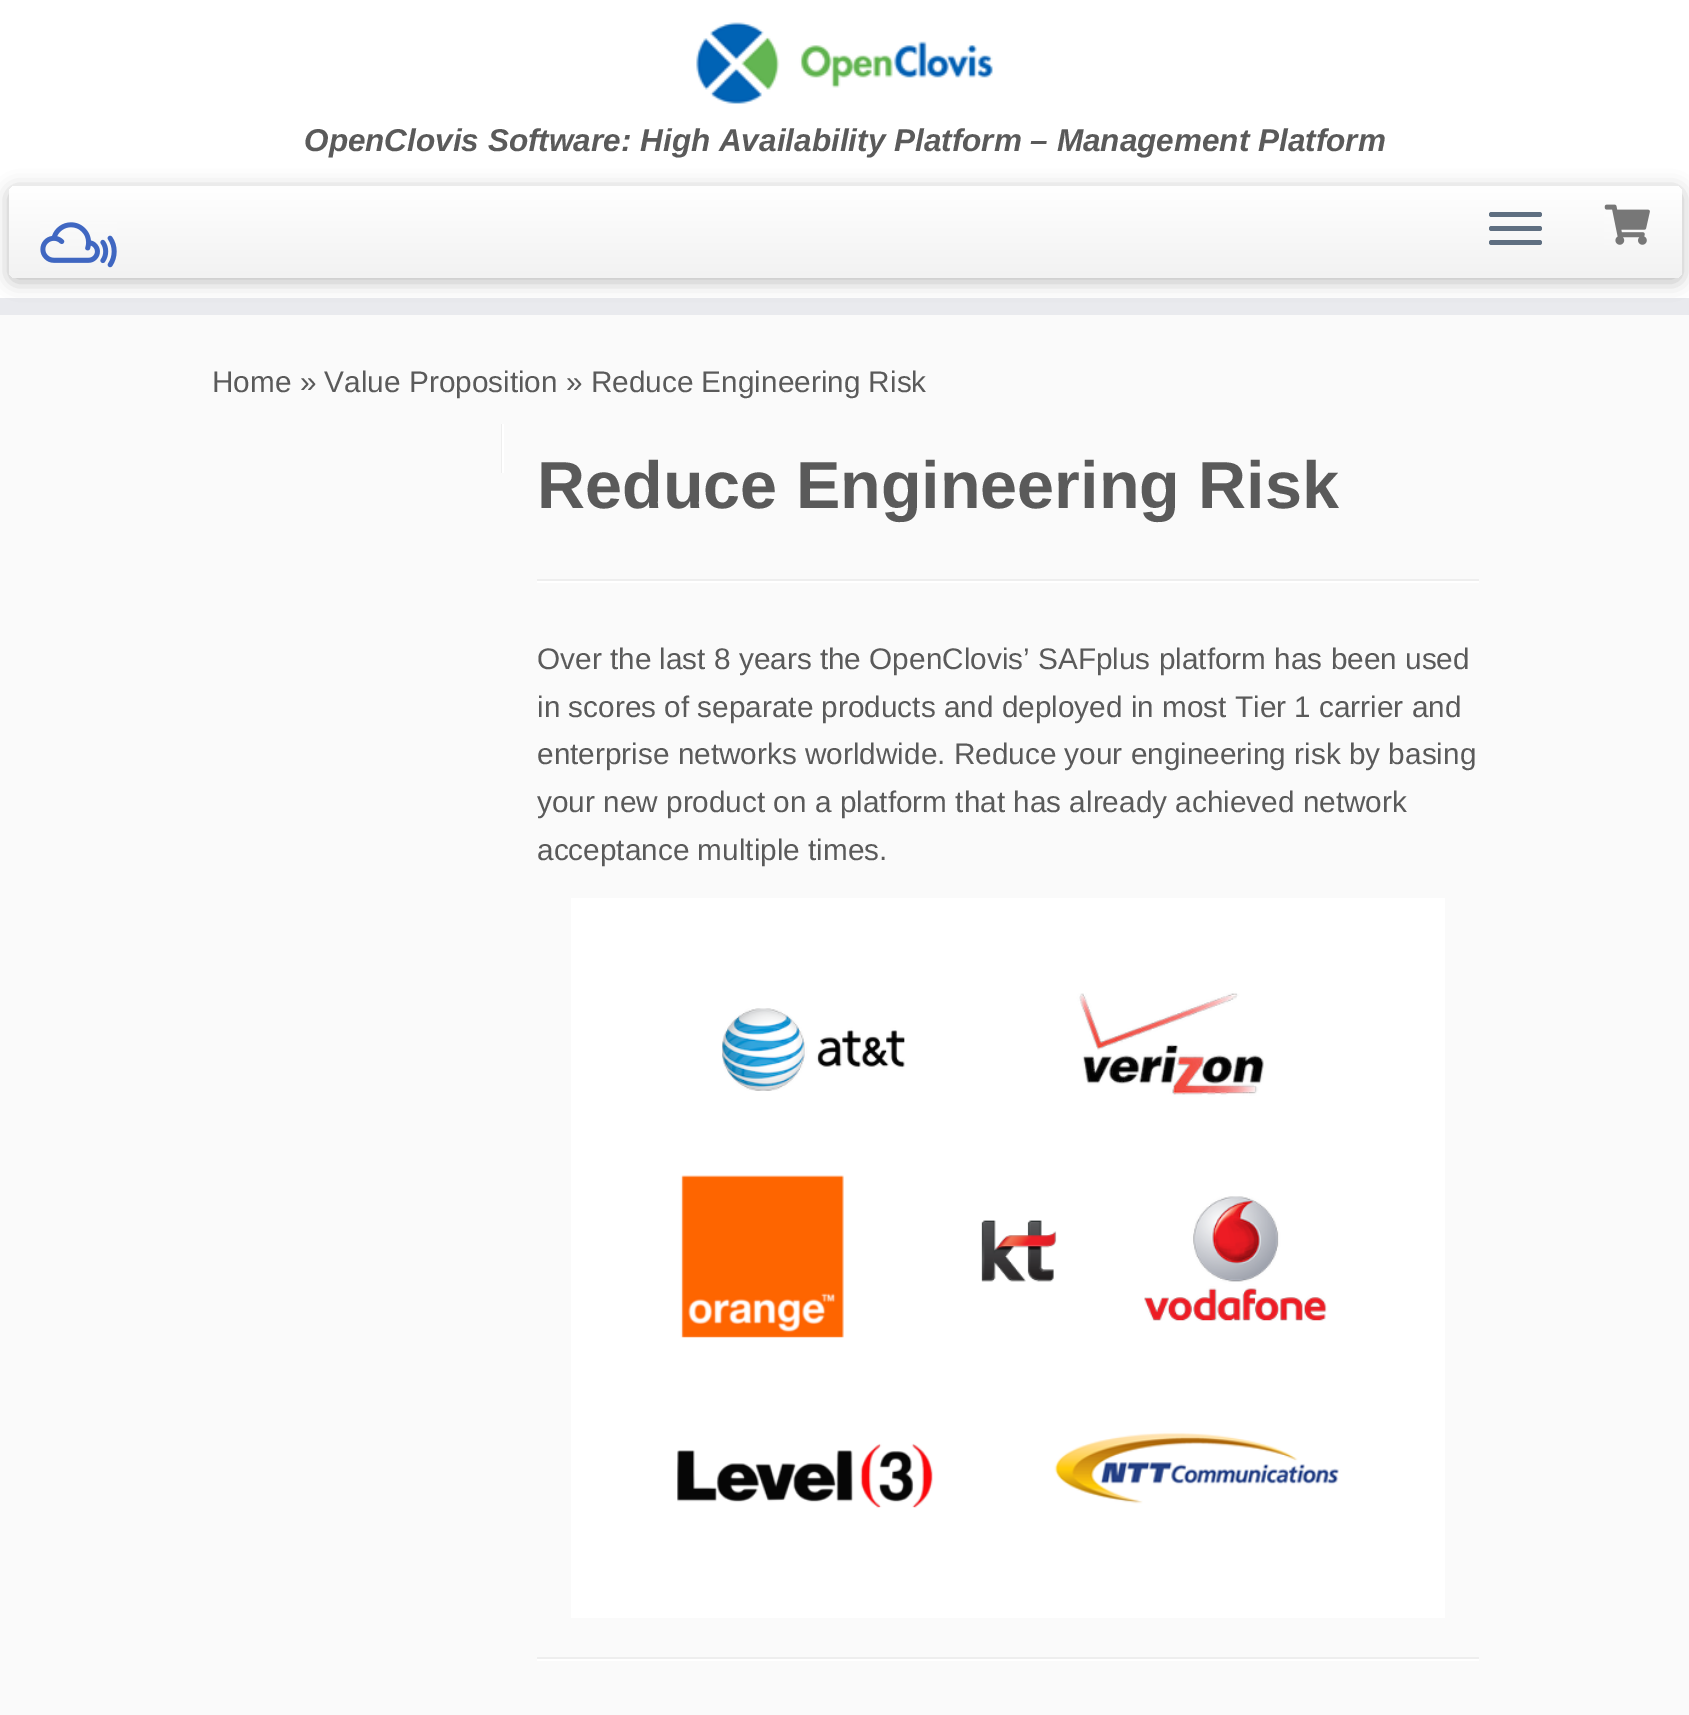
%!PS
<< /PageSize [1689 1715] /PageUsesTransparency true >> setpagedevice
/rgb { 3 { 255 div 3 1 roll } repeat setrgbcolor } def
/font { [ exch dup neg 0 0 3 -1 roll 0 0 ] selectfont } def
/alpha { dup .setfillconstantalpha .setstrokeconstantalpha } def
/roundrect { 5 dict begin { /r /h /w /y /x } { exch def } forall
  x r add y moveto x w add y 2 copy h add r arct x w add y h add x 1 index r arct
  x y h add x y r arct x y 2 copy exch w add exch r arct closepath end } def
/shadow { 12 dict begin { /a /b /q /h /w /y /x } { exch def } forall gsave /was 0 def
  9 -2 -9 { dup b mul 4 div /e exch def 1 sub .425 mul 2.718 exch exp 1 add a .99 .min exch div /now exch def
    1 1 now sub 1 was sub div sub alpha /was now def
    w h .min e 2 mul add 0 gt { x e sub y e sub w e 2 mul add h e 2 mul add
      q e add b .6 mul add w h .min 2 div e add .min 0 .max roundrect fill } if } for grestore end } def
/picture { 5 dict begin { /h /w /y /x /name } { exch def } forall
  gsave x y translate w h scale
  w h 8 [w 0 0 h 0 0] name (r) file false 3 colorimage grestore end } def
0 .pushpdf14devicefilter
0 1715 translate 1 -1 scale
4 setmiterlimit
250 250 250 rgb
0 0 1689 1715 rectfill
255 255 255 rgb
0 0 1689 298 rectfill
233 234 238 rgb
0 298 1689 17 rectfill
(img/1.rgb) 696 22 297 82 picture
0 0 0 rgb
9 189 1673 93 7 9 0.25 shadow
gsave 9 186 1673 92 7 roundrect clip newpath
<< /ShadingType 2 /ColorSpace /DeviceRGB /Coords [845 185 845 278] /Extend [true true] /Function << /FunctionType 2 /Domain [0 1] /C0 [1 1 1] /C1 [0.949 0.949 0.949] /N 1 >> >> shfill grestore
(img/2.rgb) 40 222 77 46 picture
95 111 129 rgb
1489 212 53 5 2.5 roundrect fill
1489 226 53 5 2.5 roundrect fill
1489 240 53 5 2.5 roundrect fill
(img/3.rgb) 1604 204 46 41 picture
[
  [501 424 1 49 238 238 238]
  [502 424 2 49 255 255 255]
  [537 579 942 2 238 238 238]
  [537 581 942 2 255 255 255]
] { aload pop rgb rectfill } forall
(img/4.rgb) 571 898 874 720 picture
238 238 238 rgb
537 1657 942 2 rectfill
255 255 255 rgb
537 1659 942 2 rectfill
/LiberationSans-BoldItalic 31.5 font
90 90 90 rgb
304 151 moveto (OpenClovis Software: High Availability Platform – Management Platform) show
/LiberationSans-Regular 29.75 font
212 392 moveto (Home » Value Proposition » Reduce Engineering Risk) show
/LiberationSans-Bold 66.5 font
537 508 moveto (Reduce Engineering Risk) show
/LiberationSans-Regular 29.75 font
[
  [(Over the last 8 years the OpenClovis’ SAFplus platform has been used) 537 669]
  [(in scores of separate products and deployed in most Tier 1 carrier and) 537 717]
  [(enterprise networks worldwide. Reduce your engineering risk by basing) 537 764]
  [(your new product on a platform that has already achieved network) 537 812]
  [(acceptance multiple times.) 537 860]
] { aload pop moveto show } forall
.poppdf14devicefilter showpage
